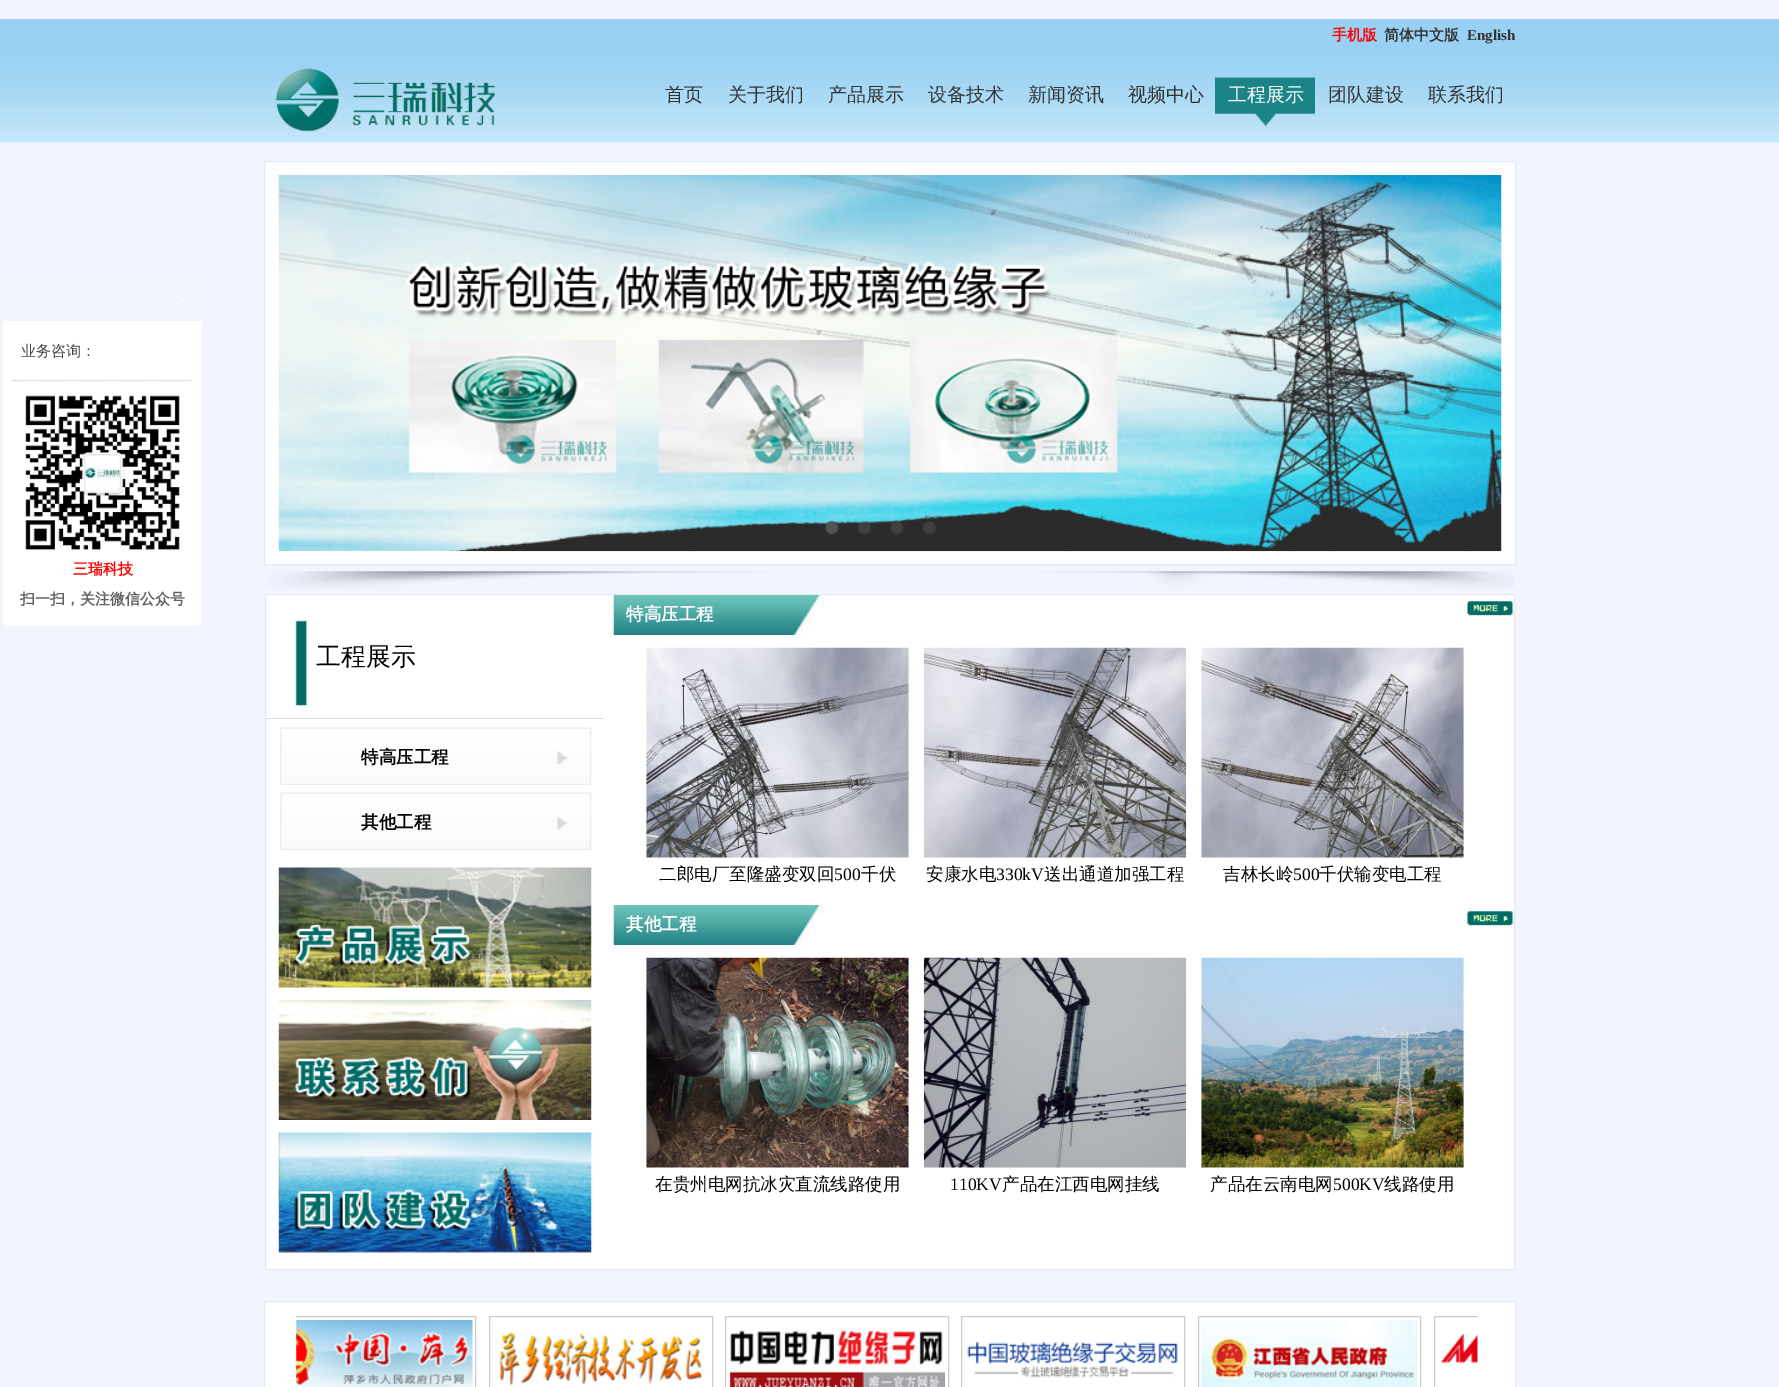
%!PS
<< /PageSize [1779 1387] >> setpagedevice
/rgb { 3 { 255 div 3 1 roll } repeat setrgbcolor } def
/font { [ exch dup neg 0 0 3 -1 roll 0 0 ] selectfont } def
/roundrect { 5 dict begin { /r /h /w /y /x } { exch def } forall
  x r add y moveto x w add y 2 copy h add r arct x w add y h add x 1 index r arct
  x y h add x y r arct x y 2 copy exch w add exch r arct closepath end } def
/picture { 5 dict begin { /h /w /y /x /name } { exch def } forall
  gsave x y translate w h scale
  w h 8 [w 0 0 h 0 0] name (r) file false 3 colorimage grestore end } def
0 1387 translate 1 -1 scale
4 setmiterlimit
242 245 255 rgb
0 0 1779 1387 rectfill
152 209 243 rgb
0 19 1779 34 rectfill
(img/1.rgb) 0 53 1779 90 picture
(img/2.rgb) 275 68 221 64 picture
(img/3.rgb) 1215 77 100 50 picture
255 255 255 rgb
1.5 276.5 202 351 6.5 roundrect gsave fill grestore
242 245 252 rgb
3 setlinewidth
stroke
8 278 moveto 198 278 lineto 201 278 203 280 203 283 curveto 203 321 lineto 3 321 lineto 3 283 lineto 3 280 5 278 8 278 curveto closepath fill
(img/4.rgb) 175 293 13 13 picture
204 204 204 rgb
1.2 setlinewidth
[1.25 1.25] 0 setdash
12.5 380.5 moveto 192.5 380.5 lineto stroke
(img/5.rgb) 25 395 155 156 picture
255 255 255 rgb
264.5 161.5 moveto 1515.5 161.5 lineto 1515.5 564.5 lineto 264.5 564.5 lineto closepath gsave fill grestore
213 239 254 rgb
1 setlinewidth
[] 0 setdash
stroke
(img/6.rgb) 278 175 1224 377 picture
(img/7.rgb) 825 521 14 14 picture
(img/8.rgb) 857 521 14 13 picture
(img/9.rgb) 890 521 14 14 picture
(img/10.rgb) 922 521 14 13 picture
(img/11.rgb) 267 571 1248 18 picture
255 255 255 rgb
265.5 594.5 moveto 1514.5 594.5 lineto 1514.5 1269.5 lineto 265.5 1269.5 lineto closepath gsave fill grestore
226 234 238 rgb
stroke
(img/12.rgb) 294 619 14 88 picture
219 219 219 rgb
266 718 338 1 rectfill
(img/13.rgb) 280 727 312 58 picture
(img/13.rgb) 280 792 312 58 picture
(img/14.rgb) 278 867 314 121 picture
(img/15.rgb) 278 1000 314 120 picture
(img/16.rgb) 278 1132 314 121 picture
(img/17.rgb) 613 595 211 40 picture
(img/18.rgb) 1466 600 48 16 picture
(img/19.rgb) 646 647 263 211 picture
(img/20.rgb) 923 647 264 211 picture
(img/21.rgb) 1201 647 263 211 picture
(img/17.rgb) 613 905 211 40 picture
(img/18.rgb) 1466 910 48 16 picture
(img/22.rgb) 646 957 263 211 picture
(img/23.rgb) 923 957 264 211 picture
(img/24.rgb) 1201 957 263 211 picture
255 255 255 rgb
264.5 1301.5 moveto 1515.5 1301.5 lineto 1515.5 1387.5 lineto 264.5 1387.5 lineto closepath gsave fill grestore
226 234 238 rgb
stroke
gsave
296 1315 1182 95 rectclip
204 204 204 rgb
253.5 1316.5 222 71 rectstroke
grestore
(img/25.rgb) 296 1320 177 67 picture
204 204 204 rgb
489.5 1316.5 223 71 rectstroke
(img/26.rgb) 498 1331 205 55 picture
725.5 1316.5 223 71 rectstroke
(img/27.rgb) 729 1330 216 57 picture
961.5 1316.5 223 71 rectstroke
(img/28.rgb) 967 1341 211 37 picture
1198.5 1316.5 222 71 rectstroke
(img/29.rgb) 1201 1320 217 67 picture
gsave
296 1315 1182 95 rectclip
1434.5 1316.5 223 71 rectstroke
grestore
(img/30.rgb) 1441 1333 37 32 picture
/WenQuanYiZenHei-Bold 15 font
255 0 0 rgb
1332 40 moveto (手机版) show
51 51 51 rgb
1384 40 moveto (简体中文版) show
/LiberationSerif-Bold 15 font
1467 40 moveto (English) show
/WenQuanYiZenHei-Medium 19 font
[
  [(首页) 665 101]
  [(关于我们) 728 101]
  [(产品展示) 828 101]
  [(设备技术) 928 101]
  [(新闻资讯) 1028 101]
  [(视频中心) 1128 101]
] { aload pop moveto show } forall
255 255 255 rgb
1228 101 moveto (工程展示) show
51 51 51 rgb
1328 101 moveto (团队建设) show
1428 101 moveto (联系我们) show
/WenQuanYiZenHei-Medium 15 font
68 68 68 rgb
21 356 moveto (业务咨询：) show
/WenQuanYiZenHei-Bold 15 font
255 0 0 rgb
73 574 moveto (三瑞科技) show
98 98 98 rgb
20 604 moveto (扫一扫，关注微信公众号) show
/WenQuanYiZenHei-Medium 25 font
0 0 0 rgb
316 665 moveto (工程展示) show
/WenQuanYiZenHei-Bold 17.5 font
361 763 moveto (特高压工程) show
361 828 moveto (其他工程) show
255 255 255 rgb
626 620 moveto (特高压工程) show
/WenQuanYiZenHei-Medium 17.5 font
0 0 0 rgb
659 880 moveto (二郎电厂至隆盛变双回) show
/LiberationSerif-Regular 17.5 font
834 880 moveto (500) show
/WenQuanYiZenHei-Medium 17.5 font
861 880 moveto (千伏) show
926 880 moveto (安康水电) show
/LiberationSerif-Regular 17.5 font
996 880 moveto (330kV) show
/WenQuanYiZenHei-Medium 17.5 font
1044 880 moveto (送出通道加强工程) show
1223 880 moveto (吉林长岭) show
/LiberationSerif-Regular 17.5 font
1293 880 moveto (500) show
/WenQuanYiZenHei-Medium 17.5 font
1319 880 moveto (千伏输变电工程) show
/WenQuanYiZenHei-Bold 17.5 font
255 255 255 rgb
626 930 moveto (其他工程) show
/WenQuanYiZenHei-Medium 17.5 font
0 0 0 rgb
655 1190 moveto (在贵州电网抗冰灾直流线路使用) show
/LiberationSerif-Regular 17.5 font
950 1190 moveto (110KV) show
/WenQuanYiZenHei-Medium 17.5 font
1002 1190 moveto (产品在江西电网挂线) show
1210 1190 moveto (产品在云南电网) show
/LiberationSerif-Regular 17.5 font
1333 1190 moveto (500KV) show
/WenQuanYiZenHei-Medium 17.5 font
1384 1190 moveto (线路使用) show
showpage
